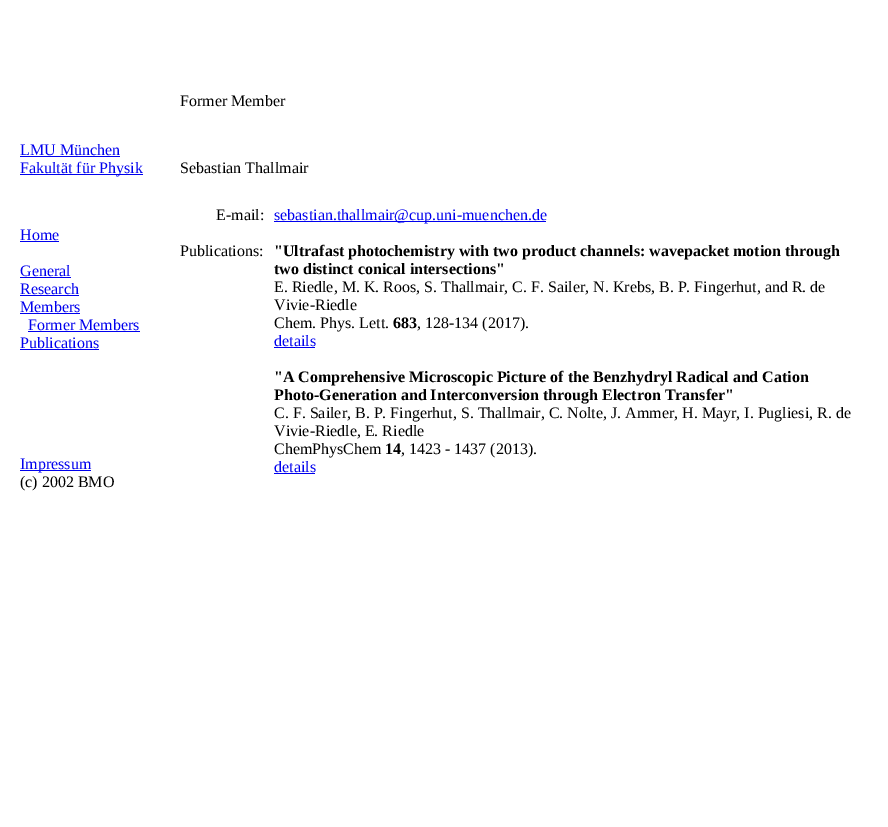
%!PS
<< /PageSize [888 827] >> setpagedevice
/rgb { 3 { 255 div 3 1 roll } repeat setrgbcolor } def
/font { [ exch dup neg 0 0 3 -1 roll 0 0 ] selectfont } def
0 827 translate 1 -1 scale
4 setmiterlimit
255 255 255 rgb
0 0 888 827 rectfill
[
  [20 156 100 1 0 0 238]
  [20 174 123 1 0 0 238]
  [20 241 39 1 0 0 238]
  [20 277 51 1 0 0 238]
  [20 295 59 1 0 0 238]
  [20 313 60 1 0 0 238]
  [28 331 112 1 0 0 238]
  [20 349 79 1 0 0 238]
  [20 470 71 1 0 0 238]
  [274 221 272 1 0 0 238]
  [274 347 41 1 0 0 238]
  [274 473 41 1 0 0 238]
] { aload pop rgb rectfill } forall
/LiberationSerif-Regular 16 font
0 0 0 rgb
180 106 moveto (Former Member) show
0 0 238 rgb
[
  [(LMU München) 20 155]
  [(Fakultät für Physik) 20 173]
  [(Home) 20 240]
  [(General) 20 276]
  [(Research) 20 294]
  [(Members) 20 312]
  [(Former Members) 28 330]
  [(Publications) 20 348]
  [(Impressum) 20 469]
] { aload pop moveto show } forall
0 0 0 rgb
[
  [(\(c\) 2002 BMO) 20 487]
  [(Sebastian Thallmair) 180 173]
  [(E-mail:) 216 220]
] { aload pop moveto show } forall
0 0 238 rgb
274 220 moveto (sebastian.thallmair@cup.uni-muenchen.de) show
0 0 0 rgb
180 256 moveto (Publications:) show
/LiberationSerif-Bold 16 font
274 256 moveto ("Ultrafast photochemistry with two product channels: wavepacket motion through) show
274 274 moveto (two distinct conical intersections") show
/LiberationSerif-Regular 16 font
[
  [(E. Riedle, M. K. Roos, S. Thallmair, C. F. Sailer, N. Krebs, B. P. Fingerhut, and R. de) 274 292]
  [(Vivie-Riedle) 274 310]
  [(Chem. Phys. Lett.) 274 328]
] { aload pop moveto show } forall
/LiberationSerif-Bold 16 font
393 328 moveto (683) show
/LiberationSerif-Regular 16 font
417 328 moveto (, 128-134 \(2017\).) show
0 0 238 rgb
274 346 moveto (details) show
/LiberationSerif-Bold 16 font
0 0 0 rgb
274 382 moveto ("A Comprehensive Microscopic Picture of the Benzhydryl Radical and Cation) show
274 400 moveto (Photo-Generation and Interconversion through Electron Transfer") show
/LiberationSerif-Regular 16 font
[
  [(C. F. Sailer, B. P. Fingerhut, S. Thallmair, C. Nolte, J. Ammer, H. Mayr, I. Pugliesi, R. de) 274 418]
  [(Vivie-Riedle, E. Riedle) 274 436]
  [(ChemPhysChem) 274 454]
] { aload pop moveto show } forall
/LiberationSerif-Bold 16 font
385 454 moveto (14) show
/LiberationSerif-Regular 16 font
401 454 moveto (, 1423 - 1437 \(2013\).) show
0 0 238 rgb
274 472 moveto (details) show
showpage
